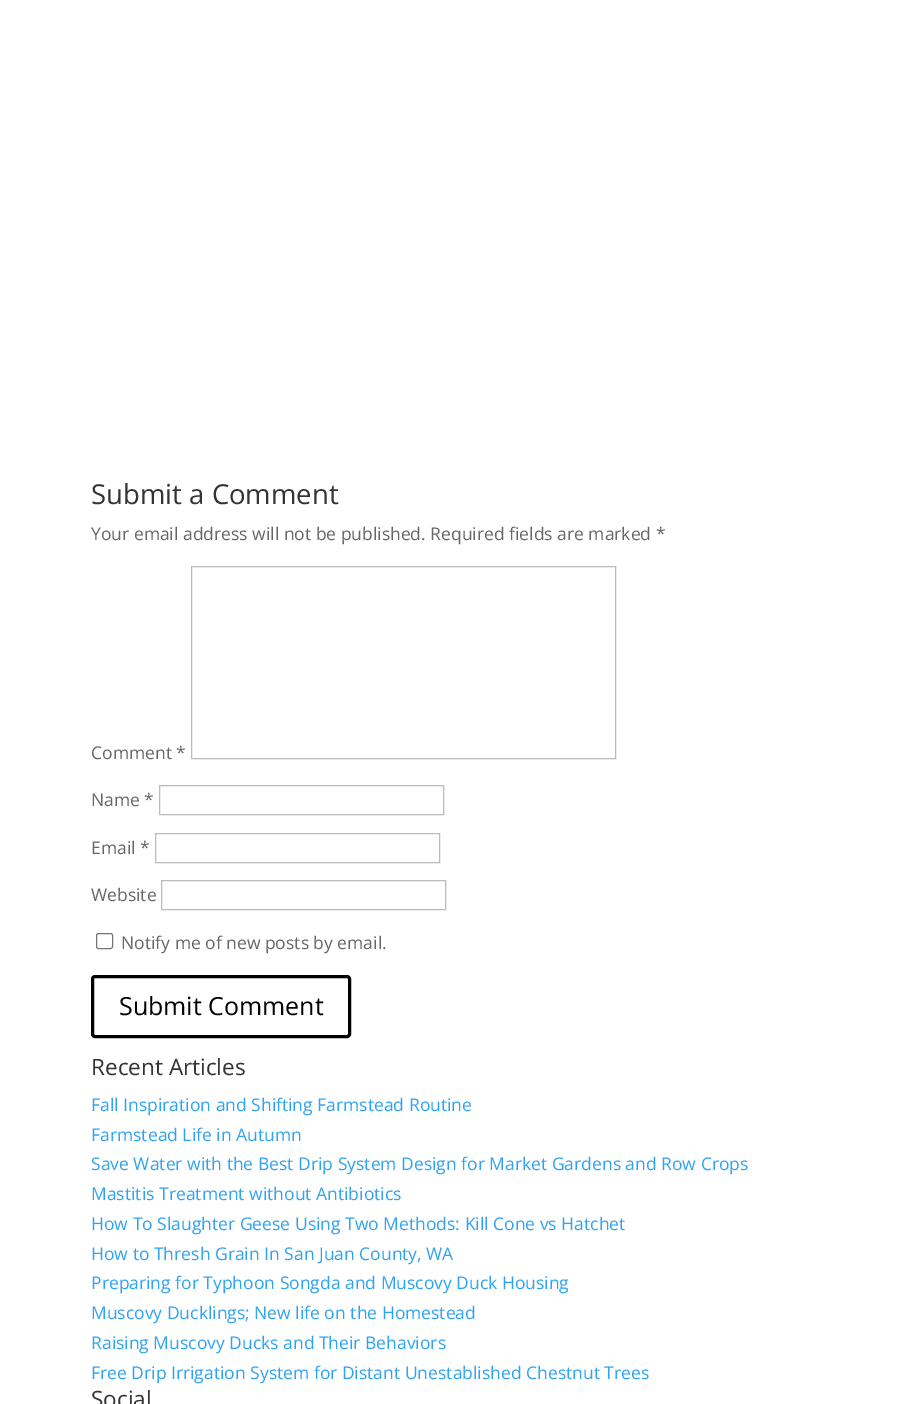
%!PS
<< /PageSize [911 1404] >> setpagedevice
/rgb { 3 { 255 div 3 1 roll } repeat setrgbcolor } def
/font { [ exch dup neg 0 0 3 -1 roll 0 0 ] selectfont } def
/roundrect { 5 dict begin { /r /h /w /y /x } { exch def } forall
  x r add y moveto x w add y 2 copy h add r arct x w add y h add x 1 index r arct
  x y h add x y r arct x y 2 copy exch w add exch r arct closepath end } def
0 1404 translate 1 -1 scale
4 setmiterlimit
255 255 255 rgb
0 0 911 1404 rectfill
187 187 187 rgb
191.5 566.5 424 192 rectstroke
159.5 785.5 284 29 rectstroke
155.5 833.5 284 29 rectstroke
161.5 880.5 284 29 rectstroke
118 118 118 rgb
96.5 933.5 16 15 2 roundrect stroke
0 0 0 rgb
3 setlinewidth
92.5 976.5 257 60 2.5 roundrect stroke
/OpenSans-Regular 27.5 font
51 51 51 rgb
91 504 moveto (Submit a Comment) show
/OpenSans-Regular 17.5 font
102 102 102 rgb
[
  [(Your email address will not be published. Required fields are marked *) 91 540]
  [(Comment *) 91 759]
  [(Name *) 91 806]
  [(Email *) 91 854]
  [(Website) 91 901]
  [(Notify me of new posts by email.) 121 949]
] { aload pop moveto show } forall
/OpenSans-Regular 25 font
0 0 0 rgb
119 1015 moveto (Submit Comment) show
/OpenSans-Regular 22.5 font
51 51 51 rgb
91 1075 moveto (Recent Articles) show
/OpenSans-Regular 17.5 font
46 163 242 rgb
[
  [(Fall Inspiration and Shifting Farmstead Routine) 91 1111]
  [(Farmstead Life in Autumn) 91 1141]
  [(Save Water with the Best Drip System Design for Market Gardens and Row Crops) 91 1170]
  [(Mastitis Treatment without Antibiotics) 91 1200]
  [(How To Slaughter Geese Using Two Methods: Kill Cone vs Hatchet) 91 1230]
  [(How to Thresh Grain In San Juan County, WA) 91 1260]
  [(Preparing for Typhoon Songda and Muscovy Duck Housing) 91 1289]
  [(Muscovy Ducklings; New life on the Homestead) 91 1319]
  [(Raising Muscovy Ducks and Their Behaviors) 91 1349]
  [(Free Drip Irrigation System for Distant Unestablished Chestnut Trees) 91 1379]
] { aload pop moveto show } forall
/OpenSans-Regular 22.5 font
51 51 51 rgb
91 1407 moveto (Social) show
showpage
